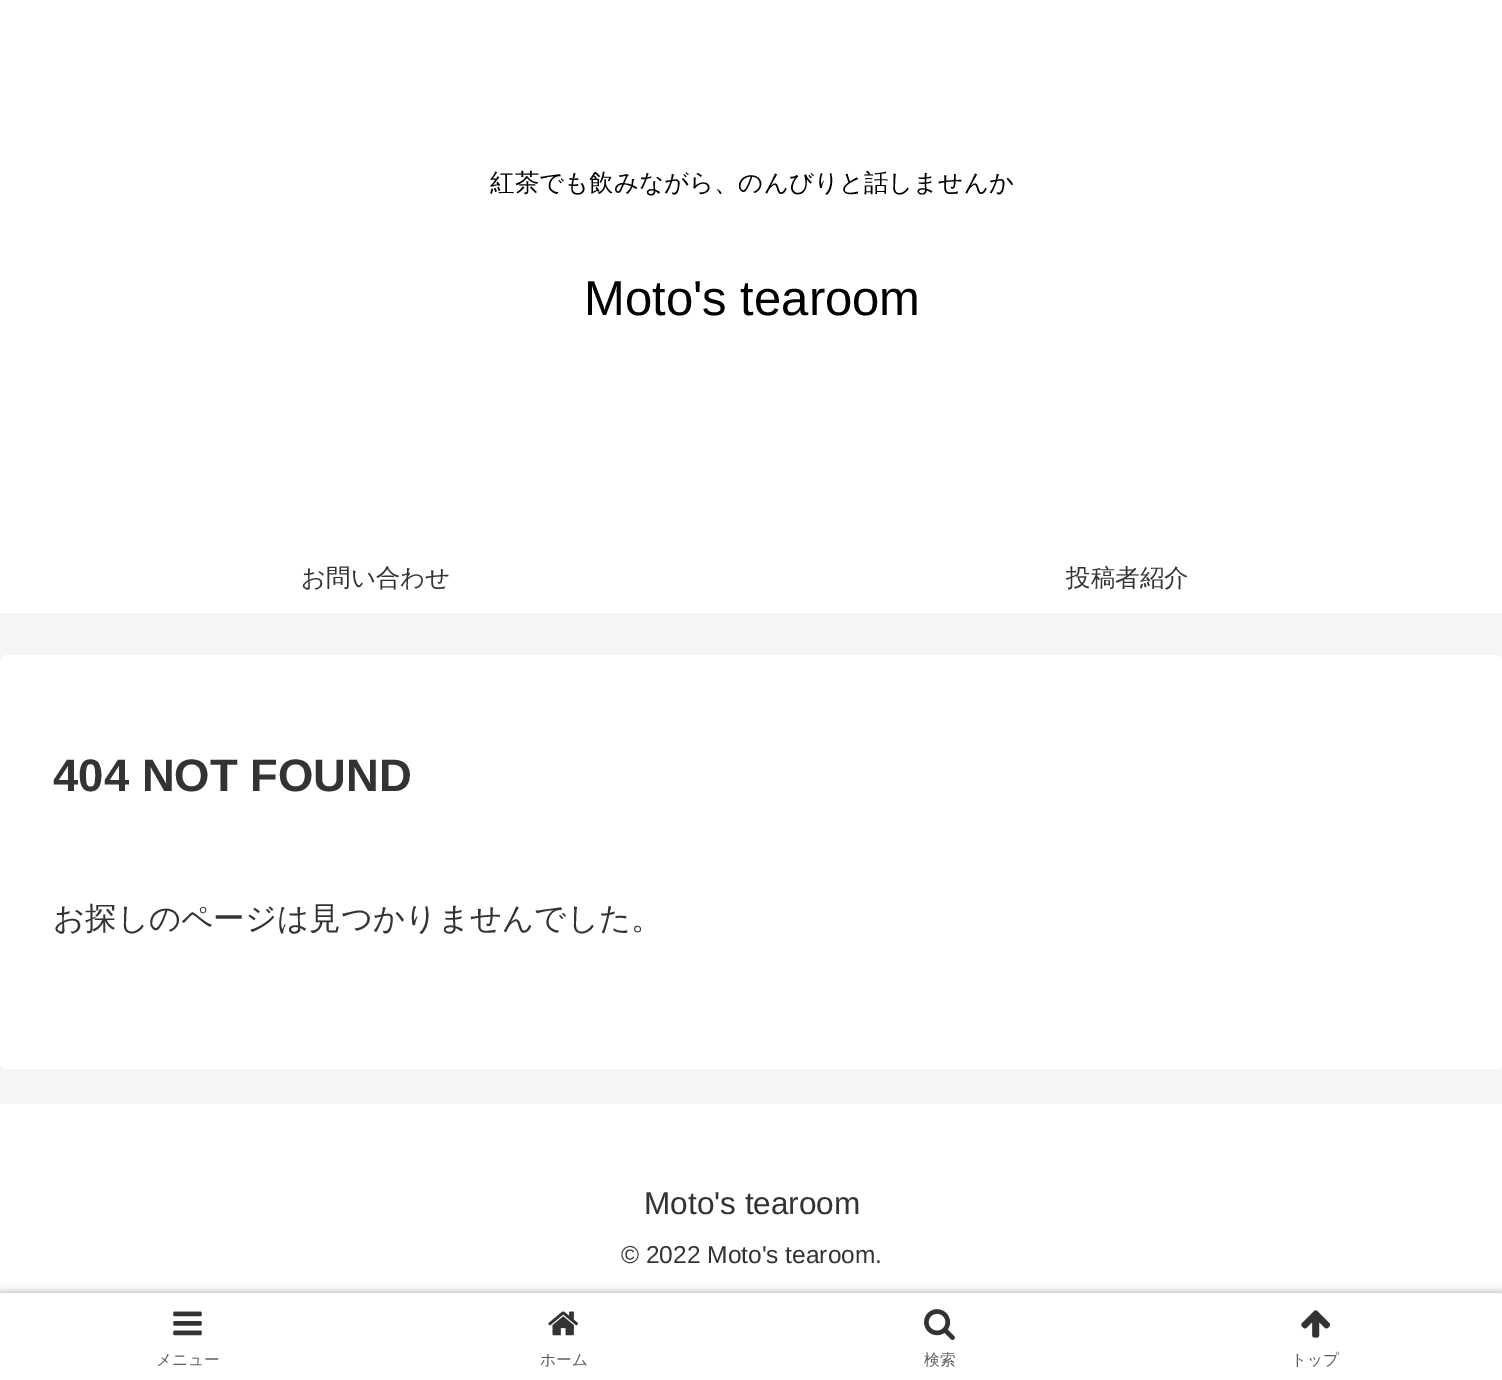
%!PS
<< /PageSize [1502 1380] /PageUsesTransparency true >> setpagedevice
/rgb { 3 { 255 div 3 1 roll } repeat setrgbcolor } def
/font { [ exch dup neg 0 0 3 -1 roll 0 0 ] selectfont } def
/alpha { dup .setfillconstantalpha .setstrokeconstantalpha } def
/roundrect { 5 dict begin { /r /h /w /y /x } { exch def } forall
  x r add y moveto x w add y 2 copy h add r arct x w add y h add x 1 index r arct
  x y h add x y r arct x y 2 copy exch w add exch r arct closepath end } def
/shadow { 12 dict begin { /a /b /q /h /w /y /x } { exch def } forall gsave /was 0 def
  9 -2 -9 { dup b mul 4 div /e exch def 1 sub .425 mul 2.718 exch exp 1 add a .99 .min exch div /now exch def
    1 1 now sub 1 was sub div sub alpha /was now def
    w h .min e 2 mul add 0 gt { x e sub y e sub w e 2 mul add h e 2 mul add
      q e add b .6 mul add w h .min 2 div e add .min 0 .max roundrect fill } if } for grestore end } def
/picture { 5 dict begin { /h /w /y /x /name } { exch def } forall
  gsave x y translate w h scale
  w h 8 [w 0 0 h 0 0] name (r) file false 3 colorimage grestore end } def
0 .pushpdf14devicefilter
0 1380 translate 1 -1 scale
4 setmiterlimit
244 245 247 rgb
0 0 1502 1380 rectfill
255 255 255 rgb
0 0 1502 613 rectfill
0 655 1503 414 7 roundrect fill
0 1104 1502 189 rectfill
169 169 169 rgb
0 1293 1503 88 0 4.5 1 shadow
255 255 255 rgb
0 1293 1502 87 rectfill
(img/1.rgb) 173 1311 29 25 picture
(img/2.rgb) 548 1311 31 25 picture
(img/3.rgb) 924 1309 31 31 picture
(img/4.rgb) 1301 1310 30 28 picture
/WenQuanYiZenHei-Medium 24.5 font
0 0 0 rgb
490 191 moveto (紅茶でも飲みながら、のんびりと話しませんか) show
/LiberationSans-Regular 49 font
584 315 moveto (Moto's tearoom) show
/WenQuanYiZenHei-Medium 24.5 font
51 51 51 rgb
301 586 moveto (お問い合わせ) show
1066 586 moveto (投稿者紹介) show
/LiberationSans-Bold 45.5 font
53 791 moveto (404 NOT FOUND) show
/WenQuanYiZenHei-Medium 31.5 font
53 929 moveto (お探しのページは見つかりませんでした。) show
/LiberationSans-Regular 31.5 font
644 1214 moveto (Moto's tearoom) show
/LiberationSans-Regular 24.5 font
621 1263 moveto (© 2022 Moto's tearoom.) show
/WenQuanYiZenHei-Medium 15.75 font
92 92 92 rgb
[
  [(メニュー) 156 1365]
  [(ホーム) 540 1365]
  [(検索) 924 1365]
  [(トップ) 1291 1365]
] { aload pop moveto show } forall
.poppdf14devicefilter showpage
